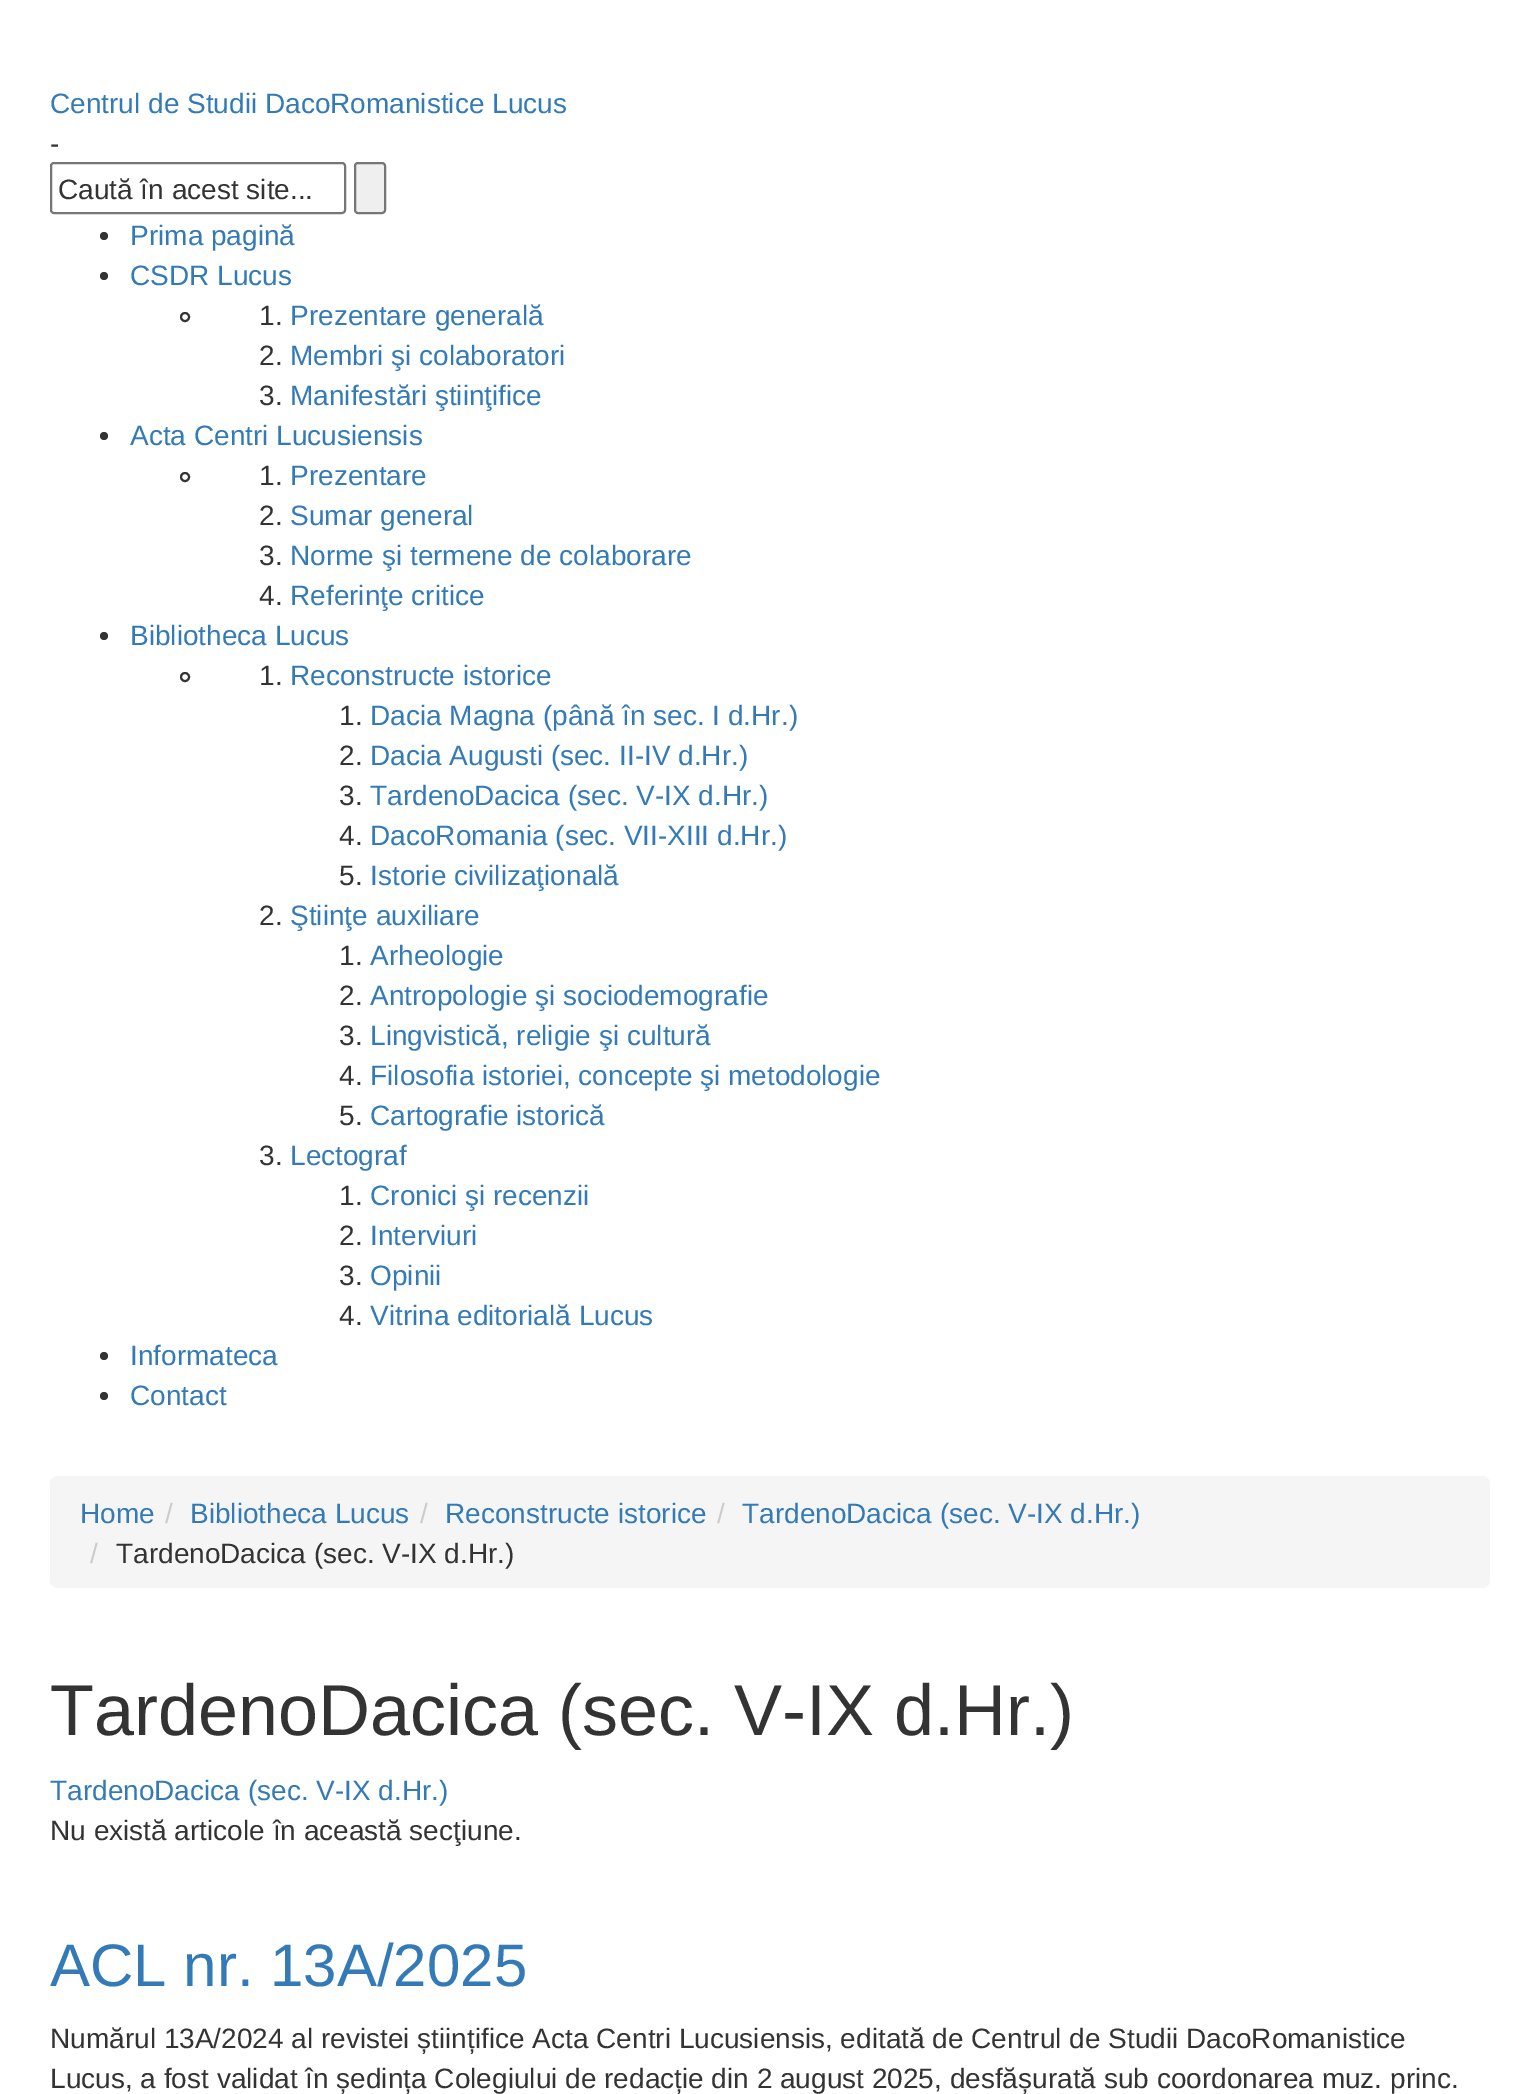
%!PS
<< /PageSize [1539 2094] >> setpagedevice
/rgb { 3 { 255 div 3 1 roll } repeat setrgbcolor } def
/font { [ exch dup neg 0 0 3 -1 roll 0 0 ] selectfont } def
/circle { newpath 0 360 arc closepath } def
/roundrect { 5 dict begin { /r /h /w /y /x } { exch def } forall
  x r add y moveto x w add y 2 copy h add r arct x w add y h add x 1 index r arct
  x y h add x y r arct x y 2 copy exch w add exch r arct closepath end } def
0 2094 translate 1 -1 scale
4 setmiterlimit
255 255 255 rgb
0 0 1539 2094 rectfill
118 118 118 rgb
2 setlinewidth
51 163 294 50 3 roundrect stroke
239 239 239 rgb
355 163 30 50 3 roundrect gsave fill grestore
118 118 118 rgb
stroke
51 51 51 rgb
104 236 4 circle fill
104 276 4 circle fill
185 317 4 circle stroke
104 436 4 circle fill
185 477 4 circle stroke
104 636 4 circle fill
185 677 4 circle stroke
104 1356 4 circle fill
104 1396 4 circle fill
245 245 245 rgb
50 1476 1440 112 8 roundrect fill
/LiberationSans-Regular 28 font
51 122 183 rgb
50 113 moveto (Centrul de Studii DacoRomanistice Lucus) show
51 51 51 rgb
50 153 moveto (-) show
58 199 moveto (Caută în acest site...) show
51 122 183 rgb
130 245 moveto (Prima pagină) show
130 285 moveto (CSDR Lucus) show
51 51 51 rgb
259 325 moveto (1.) show
51 122 183 rgb
290 325 moveto (Prezentare generală) show
51 51 51 rgb
259 365 moveto (2.) show
51 122 183 rgb
290 365 moveto (Membri şi colaboratori) show
51 51 51 rgb
259 405 moveto (3.) show
51 122 183 rgb
290 405 moveto (Manifestări ştiinţifice) show
130 445 moveto (Acta Centri Lucusiensis) show
51 51 51 rgb
259 485 moveto (1.) show
51 122 183 rgb
290 485 moveto (Prezentare) show
51 51 51 rgb
259 525 moveto (2.) show
51 122 183 rgb
290 525 moveto (Sumar general) show
51 51 51 rgb
259 565 moveto (3.) show
51 122 183 rgb
290 565 moveto (Norme şi termene de colaborare) show
51 51 51 rgb
259 605 moveto (4.) show
51 122 183 rgb
290 605 moveto (Referinţe critice) show
130 645 moveto (Bibliotheca Lucus) show
51 51 51 rgb
259 685 moveto (1.) show
51 122 183 rgb
290 685 moveto (Reconstructe istorice) show
51 51 51 rgb
339 725 moveto (1.) show
51 122 183 rgb
370 725 moveto (Dacia Magna \(până în sec. I d.Hr.\)) show
51 51 51 rgb
339 765 moveto (2.) show
51 122 183 rgb
370 765 moveto (Dacia Augusti \(sec. II-IV d.Hr.\)) show
51 51 51 rgb
339 805 moveto (3.) show
51 122 183 rgb
370 805 moveto (TardenoDacica \(sec. V-IX d.Hr.\)) show
51 51 51 rgb
339 845 moveto (4.) show
51 122 183 rgb
370 845 moveto (DacoRomania \(sec. VII-XIII d.Hr.\)) show
51 51 51 rgb
339 885 moveto (5.) show
51 122 183 rgb
370 885 moveto (Istorie civilizaţională) show
51 51 51 rgb
259 925 moveto (2.) show
51 122 183 rgb
290 925 moveto (Ştiinţe auxiliare) show
51 51 51 rgb
339 965 moveto (1.) show
51 122 183 rgb
370 965 moveto (Arheologie) show
51 51 51 rgb
339 1005 moveto (2.) show
51 122 183 rgb
370 1005 moveto (Antropologie şi sociodemografie) show
51 51 51 rgb
339 1045 moveto (3.) show
51 122 183 rgb
370 1045 moveto (Lingvistică, religie şi cultură) show
51 51 51 rgb
339 1085 moveto (4.) show
51 122 183 rgb
370 1085 moveto (Filosofia istoriei, concepte şi metodologie) show
51 51 51 rgb
339 1125 moveto (5.) show
51 122 183 rgb
370 1125 moveto (Cartografie istorică) show
51 51 51 rgb
259 1165 moveto (3.) show
51 122 183 rgb
290 1165 moveto (Lectograf) show
51 51 51 rgb
339 1205 moveto (1.) show
51 122 183 rgb
370 1205 moveto (Cronici şi recenzii) show
51 51 51 rgb
339 1245 moveto (2.) show
51 122 183 rgb
370 1245 moveto (Interviuri) show
51 51 51 rgb
339 1285 moveto (3.) show
51 122 183 rgb
370 1285 moveto (Opinii) show
51 51 51 rgb
339 1325 moveto (4.) show
51 122 183 rgb
[
  [(Vitrina editorială Lucus) 370 1325]
  [(Informateca) 130 1365]
  [(Contact) 130 1405]
  [(Home) 80 1523]
] { aload pop moveto show } forall
204 204 204 rgb
165 1523 moveto (/) show
51 122 183 rgb
190 1523 moveto (Bibliotheca Lucus) show
204 204 204 rgb
420 1523 moveto (/) show
51 122 183 rgb
445 1523 moveto (Reconstructe istorice) show
204 204 204 rgb
717 1523 moveto (/) show
51 122 183 rgb
742 1523 moveto (TardenoDacica \(sec. V-IX d.Hr.\)) show
204 204 204 rgb
90 1563 moveto (/) show
51 51 51 rgb
116 1563 moveto (TardenoDacica \(sec. V-IX d.Hr.\)) show
/LiberationSans-Regular 72 font
50 1735 moveto (TardenoDacica \(sec. V-IX d.Hr.\)) show
/LiberationSans-Regular 28 font
51 122 183 rgb
50 1800 moveto (TardenoDacica \(sec. V-IX d.Hr.\)) show
51 51 51 rgb
50 1840 moveto (Nu există articole în această secţiune.) show
/LiberationSans-Regular 60 font
51 122 183 rgb
50 1986 moveto (ACL nr. 13A/2025) show
/LiberationSans-Regular 28 font
51 51 51 rgb
50 2048 moveto (Numărul 13A/2024 al revistei științifice Acta Centri Lucusiensis, editată de Centrul de Studii DacoRomanistice) show
50 2088 moveto (Lucus, a fost validat în ședința Colegiului de redacție din 2 august 2025, desfășurată sub coordonarea muz. princ.) show
showpage
